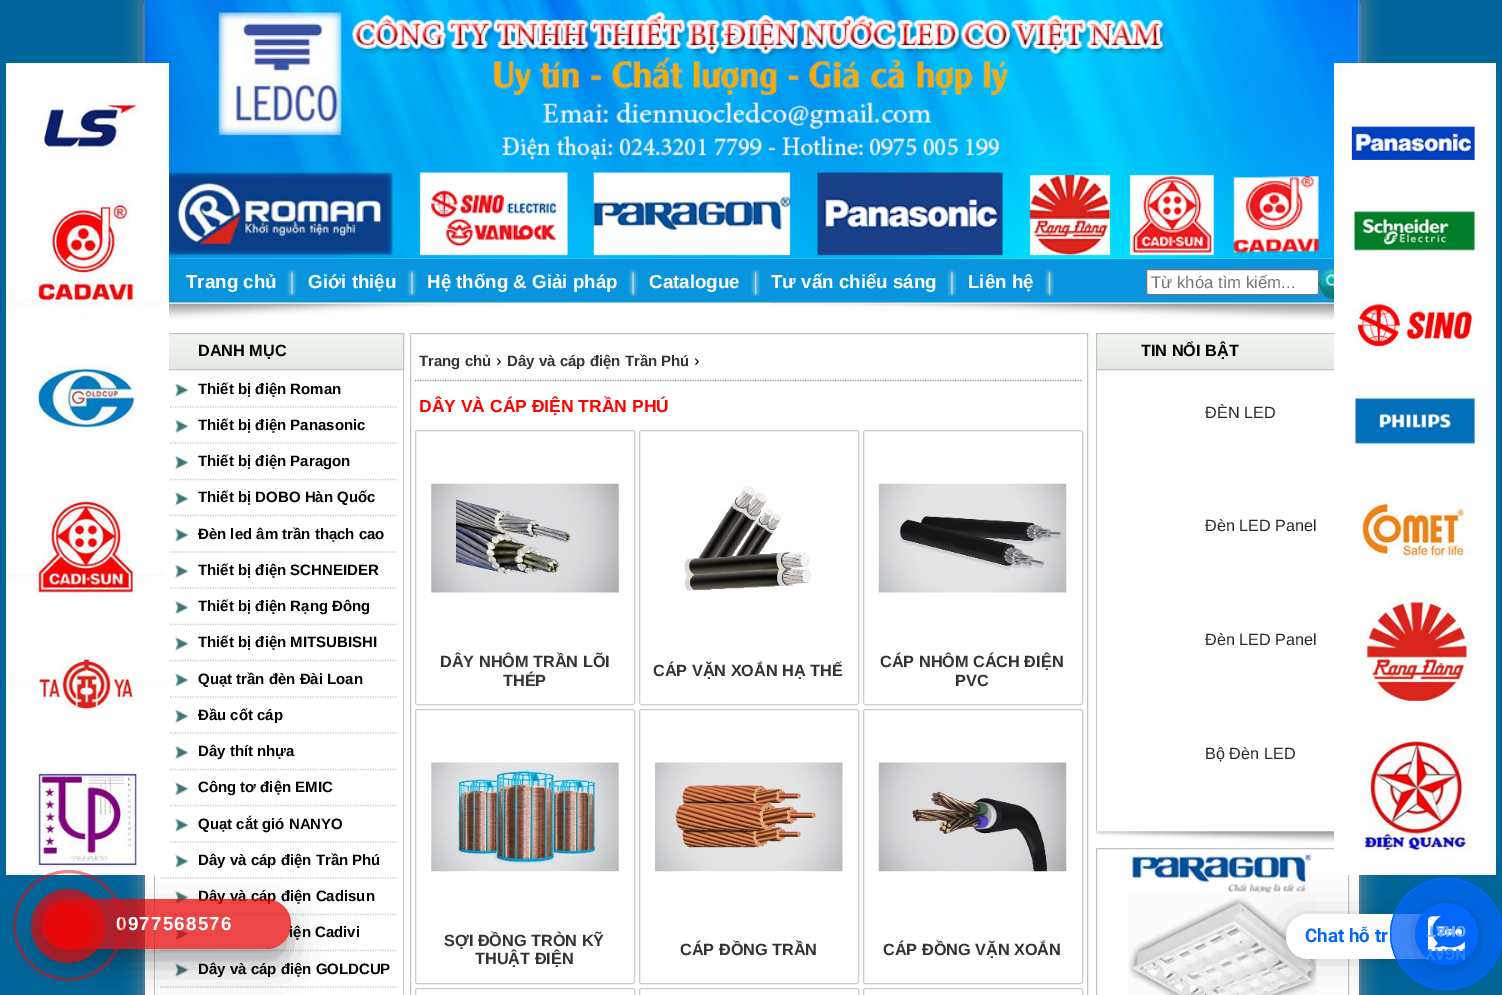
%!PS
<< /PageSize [1502 995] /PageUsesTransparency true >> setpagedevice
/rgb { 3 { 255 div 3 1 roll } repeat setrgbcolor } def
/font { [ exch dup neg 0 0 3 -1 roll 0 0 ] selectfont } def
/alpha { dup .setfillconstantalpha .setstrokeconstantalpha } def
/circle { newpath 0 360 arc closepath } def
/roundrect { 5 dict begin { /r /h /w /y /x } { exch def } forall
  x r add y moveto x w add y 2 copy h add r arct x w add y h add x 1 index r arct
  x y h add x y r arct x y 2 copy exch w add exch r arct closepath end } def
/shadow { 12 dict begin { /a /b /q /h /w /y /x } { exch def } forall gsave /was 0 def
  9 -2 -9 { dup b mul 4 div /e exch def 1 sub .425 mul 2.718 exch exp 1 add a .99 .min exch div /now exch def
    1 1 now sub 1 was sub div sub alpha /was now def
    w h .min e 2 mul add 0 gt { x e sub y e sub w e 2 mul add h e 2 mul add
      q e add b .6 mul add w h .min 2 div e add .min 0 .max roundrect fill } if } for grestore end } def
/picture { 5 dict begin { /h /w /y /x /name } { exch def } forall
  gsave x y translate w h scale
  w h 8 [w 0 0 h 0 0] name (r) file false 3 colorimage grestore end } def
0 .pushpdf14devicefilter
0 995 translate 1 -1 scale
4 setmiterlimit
0 102 153 rgb
0 0 1502 995 rectfill
153 153 153 rgb
145 1 1214 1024 0 10 1 shadow
255 255 255 rgb
145 0 1214 995 rectfill
192 197 191 rgb
154 875 1 120 rectfill
204 204 204 rgb
1.2 setlinewidth
[1.25 1.25] 0 setdash
160 914.5 moveto 397.5 914.5 lineto stroke
(img/13.rgb) 175 891 14 13 picture
160 950.5 moveto 397.5 950.5 lineto stroke
(img/14.rgb) 175 927 14 14 picture
(img/11.rgb) 175 963 14 14 picture
gsave
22 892 moveto 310 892 lineto 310 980 lineto 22 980 lineto closepath 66 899 moveto 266 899 lineto 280 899 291 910 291 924 curveto 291 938 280 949 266 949 curveto 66 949 lineto 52 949 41 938 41 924 curveto 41 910 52 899 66 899 curveto closepath eoclip newpath
0 0 0 rgb
41 911 250 50 25 6 0.1 shadow
grestore
(img/4.rgb) 169 258 1165 62 picture
(img/1.rgb) 145 0 1214 259 picture
(img/10.rgb) 169 332 235 37 picture
192 197 191 rgb
1 setlinewidth
[] 0 setdash
155 333.5 moveto 403 333.5 lineto 403.5 333.5 403.5 333.5 403.5 334 curveto 403.5 369.5 lineto 154.5 369.5 lineto 154.5 334 lineto 154.5 333.5 154.5 333.5 155 333.5 curveto closepath stroke
204 204 204 rgb
1.2 setlinewidth
[1.25 1.25] 0 setdash
160 407 moveto 397.5 407 lineto stroke
160 443 moveto 397.5 443 lineto stroke
160 479.5 moveto 397.5 479.5 lineto stroke
160 515.5 moveto 397.5 515.5 lineto stroke
160 552 moveto 397.5 552 lineto stroke
160 588 moveto 397.5 588 lineto stroke
160 624.5 moveto 397.5 624.5 lineto stroke
160 660.5 moveto 397.5 660.5 lineto stroke
160 697 moveto 397.5 697 lineto stroke
160 733 moveto 397.5 733 lineto stroke
160 769.5 moveto 397.5 769.5 lineto stroke
160 805.5 moveto 397.5 805.5 lineto stroke
160 842 moveto 397.5 842 lineto stroke
(img/2.rgb) 6 63 163 812 picture
160 878 moveto 397.5 878 lineto stroke
(img/12.rgb) 175 854 14 14 picture
160 987 moveto 397.5 987 lineto stroke
gsave
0 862 moveto 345 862 lineto 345 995 lineto 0 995 lineto closepath 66 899 moveto 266 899 lineto 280 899 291 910 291 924 curveto 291 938 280 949 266 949 curveto 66 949 lineto 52 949 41 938 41 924 curveto 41 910 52 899 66 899 curveto closepath eoclip newpath
0 0 0 rgb
41 916 250 50 25 17.5 0.25 shadow
grestore
(img/22.rgb) 1096 332 238 37 picture
192 197 191 rgb
1 setlinewidth
[] 0 setdash
1097 333.5 moveto 1345 333.5 lineto 1345.5 333.5 1345.5 333.5 1345.5 334 curveto 1345.5 369.5 lineto 1096.5 369.5 lineto 1096.5 334 lineto 1096.5 333.5 1096.5 333.5 1097 333.5 curveto closepath stroke
1096.5 848.5 252 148 0.5 roundrect stroke
(img/3.rgb) 1334 63 162 812 picture
(img/5.rgb) 287 269 10 28 picture
(img/5.rgb) 407 269 10 28 picture
(img/6.rgb) 628 269 10 28 picture
(img/7.rgb) 751 269 9 28 picture
(img/5.rgb) 947 269 10 28 picture
(img/8.rgb) 1045 269 9 28 picture
255 255 255 rgb
1146.5 269.5 172 25 2 roundrect gsave fill grestore
118 118 118 rgb
stroke
(img/9.rgb) 1318 268 16 32 picture
192 197 191 rgb
403 370 1 625 rectfill
(img/11.rgb) 175 383 14 14 picture
(img/12.rgb) 175 419 14 14 picture
(img/13.rgb) 175 456 14 13 picture
(img/14.rgb) 175 492 14 14 picture
(img/11.rgb) 175 528 14 14 picture
(img/12.rgb) 175 564 14 14 picture
(img/13.rgb) 175 601 14 13 picture
(img/14.rgb) 175 637 14 14 picture
(img/11.rgb) 175 673 14 14 picture
(img/12.rgb) 175 709 14 14 picture
(img/13.rgb) 175 746 14 13 picture
(img/15.rgb) 175 782 14 14 picture
(img/11.rgb) 175 818 14 14 picture
410.5 333.5 677 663 0.5 roundrect stroke
153 153 153 rgb
1.2 setlinewidth
[1.25 1.25] 0 setdash
415 380.5 moveto 1082.5 380.5 lineto stroke
204 204 204 rgb
1 setlinewidth
[] 0 setdash
415.5 430.5 219 274 2 roundrect stroke
(img/16.rgb) 431 483 188 110 picture
639.5 430.5 219 274 2 roundrect stroke
(img/17.rgb) 683 485 129 106 picture
863.5 430.5 219 274 2 roundrect stroke
(img/18.rgb) 878 483 189 110 picture
415.5 709.5 219 274 2 roundrect stroke
(img/19.rgb) 431 762 188 110 picture
639.5 709.5 219 274 2 roundrect stroke
(img/20.rgb) 655 762 188 110 picture
863.5 709.5 219 274 2 roundrect stroke
(img/21.rgb) 878 762 189 110 picture
415.5 988.5 219 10 2 roundrect stroke
639.5 988.5 219 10 2 roundrect stroke
863.5 988.5 219 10 2 roundrect stroke
192 197 191 rgb
1096 370 1 461 rectfill
(img/23.rgb) 1096 831 238 12 picture
(img/24.rgb) 1128 853 189 142 picture
0 0 0 rgb
1286 916 144 45 22.5 20 0.16 shadow
1286 915 144 45 22.5 4 0.06 shadow
255 255 255 rgb
1308.5 914 moveto 1430 914 lineto 1430 959 lineto 1308.5 959 lineto 1296 959 1286 949 1286 936.5 curveto 1286 924 1296 914 1308.5 914 curveto closepath fill
0.5 alpha
0 104 255 rgb
1390.5 878.5 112 111 55.5 roundrect fill
1 alpha
1390.5 878.5 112 111 55.5 roundrect stroke
0.5 alpha
1390.5 878.5 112 111 55.5 roundrect fill
1 alpha
1390.5 878.5 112 111 55.5 roundrect stroke
0 0 0 rgb
1415 905 63 63 31.5 20 0.16 shadow
1415 904 63 62 31 4 0.06 shadow
0 104 255 rgb
1415 903 63 62 31 roundrect fill
(img/25.rgb) 1428 916 37 35 picture
/LiberationSans-Bold 18.75 font
255 255 255 rgb
[
  [(Trang chủ) 186 288]
  [(Giới thiệu) 308 288]
  [(Hệ thống & Giải pháp) 427 288]
  [(Catalogue) 649 288]
  [(Tư vấn chiếu sáng) 771 288]
  [(Liên hệ) 968 288]
] { aload pop moveto show } forall
/LiberationSans-Regular 16.75 font
117 117 117 rgb
1151 288 moveto (Từ khóa tìm kiếm...) show
/LiberationSans-Bold 16.25 font
0 0 0 rgb
198 356 moveto (DANH MỤC) show
/LiberationSans-Bold 15 font
[
  [(Thiết bị điện Roman) 198 394]
  [(Thiết bị điện Panasonic) 198 430]
  [(Thiết bị điện Paragon) 198 466]
  [(Thiết bị DOBO Hàn Quốc) 198 502]
  [(Đèn led âm trần thạch cao) 198 539]
  [(Thiết bị điện SCHNEIDER) 198 575]
  [(Thiết bị điện Rạng Đông) 198 611]
  [(Thiết bị điện MITSUBISHI) 198 647]
  [(Quạt trần đèn Đài Loan) 198 684]
  [(Đầu cốt cáp) 198 720]
  [(Dây thít nhựa) 198 756]
  [(Công tơ điện EMIC) 198 792]
  [(Quạt cắt gió NANYO) 198 829]
  [(Dây và cáp điện Trần Phú) 198 865]
  [(Dây và cáp điện Cadisun) 198 901]
  [(iện Cadivi) 289 937]
] { aload pop moveto show } forall
0.75 alpha
230 8 8 rgb
41 899 250 50 25 roundrect fill
/LiberationSans-Bold 18.75 font
1 alpha
255 255 255 rgb
116 930 moveto 1.25 0 (0977568576) ashow
0.5 alpha
230 8 8 rgb
3 setlinewidth
68.5 925.5 54 circle stroke
0.7 alpha
68 926 37 circle fill
1 alpha
46 904 47 46 23 roundrect fill
/LiberationSans-Bold 15 font
0 0 0 rgb
198 974 moveto (Dây và cáp điện GOLDCUP) show
51 51 51 rgb
419 366 moveto (Trang chủ) show
/LiberationSans-Regular 16.25 font
0 0 0 rgb
496 366 moveto (›) show
/LiberationSans-Bold 15 font
51 51 51 rgb
507 366 moveto (Dây và cáp điện Trần Phú) show
/LiberationSans-Regular 16.25 font
0 0 0 rgb
694 366 moveto (›) show
/LiberationSans-Bold 17.5 font
255 0 0 rgb
419 412 moveto (DÂY VÀ CÁP ĐIỆN TRẦN PHÚ) show
/LiberationSans-Bold 16.25 font
51 51 51 rgb
[
  [(DÂY NHÔM TRẦN LÕI) 440 667]
  [(THÉP) 503 686]
  [(CÁP VẶN XOẮN HẠ THẾ) 653 676]
  [(CÁP NHÔM CÁCH ĐIỆN) 880 667]
  [(PVC) 955 686]
  [(SỢI ĐỒNG TRÒN KỸ) 444 946]
  [(THUẬT ĐIỆN) 475 964]
  [(CÁP ĐỒNG TRẦN) 680 955]
  [(CÁP ĐỒNG VẶN XOẮN) 883 955]
] { aload pop moveto show } forall
0 0 0 rgb
1141 356 moveto (TIN NỔI BẬT) show
/LiberationSans-Regular 16.25 font
42 42 42 rgb
[
  [(ĐÈN LED) 1205 418]
  [(Đèn LED Panel) 1205 531]
  [(Đèn LED Panel) 1205 645]
  [(Bộ Đèn LED) 1205 759]
] { aload pop moveto show } forall
/Roboto-Bold 18.75 font
0 104 255 rgb
1305 942 moveto (Chat hỗ tr) show
/Roboto-Bold 15 font
118 174 255 rgb
gsave 1466 926 translate 180 rotate 0 0 moveto (CHAT) show grestore
43 129 254 rgb
gsave 1466 949 translate 180 rotate 0 0 moveto (NGAY) show grestore
.poppdf14devicefilter showpage
